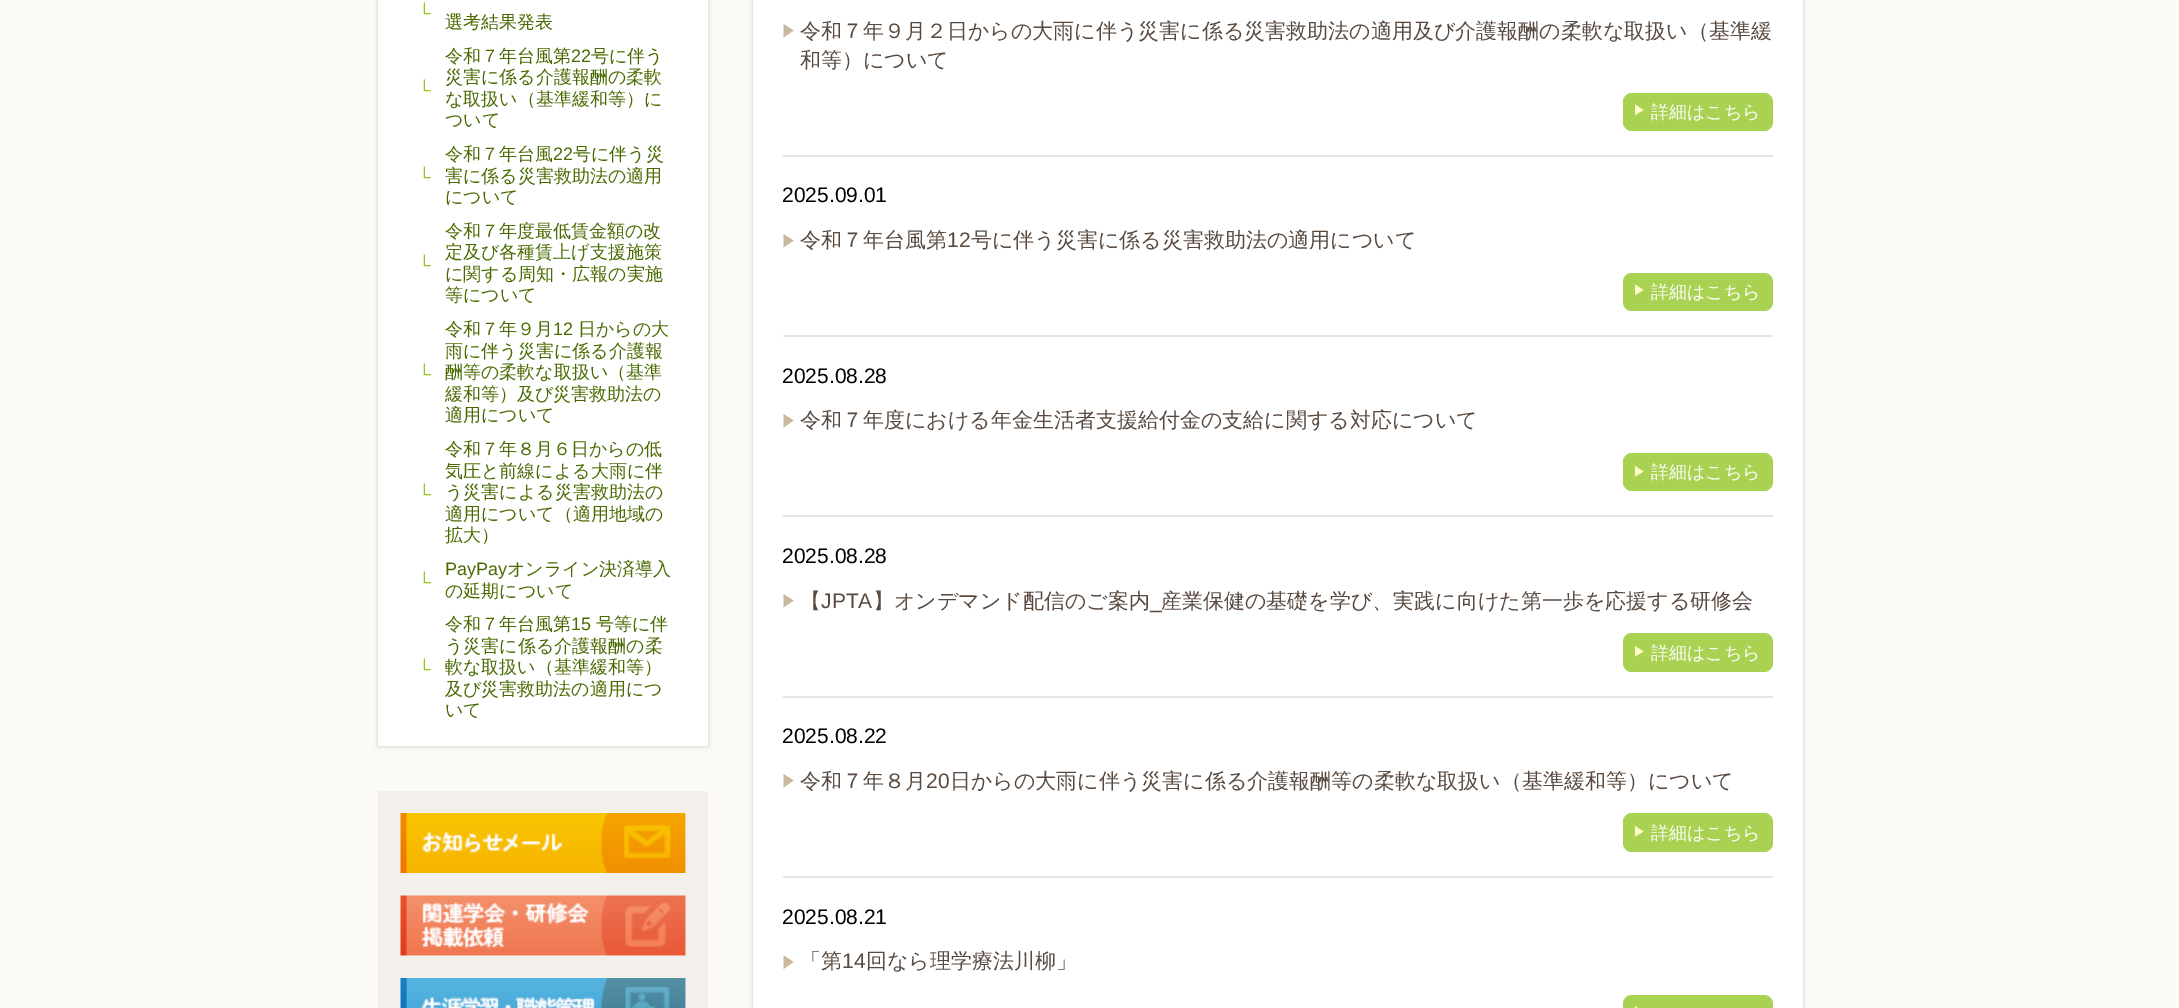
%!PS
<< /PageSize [2179 1008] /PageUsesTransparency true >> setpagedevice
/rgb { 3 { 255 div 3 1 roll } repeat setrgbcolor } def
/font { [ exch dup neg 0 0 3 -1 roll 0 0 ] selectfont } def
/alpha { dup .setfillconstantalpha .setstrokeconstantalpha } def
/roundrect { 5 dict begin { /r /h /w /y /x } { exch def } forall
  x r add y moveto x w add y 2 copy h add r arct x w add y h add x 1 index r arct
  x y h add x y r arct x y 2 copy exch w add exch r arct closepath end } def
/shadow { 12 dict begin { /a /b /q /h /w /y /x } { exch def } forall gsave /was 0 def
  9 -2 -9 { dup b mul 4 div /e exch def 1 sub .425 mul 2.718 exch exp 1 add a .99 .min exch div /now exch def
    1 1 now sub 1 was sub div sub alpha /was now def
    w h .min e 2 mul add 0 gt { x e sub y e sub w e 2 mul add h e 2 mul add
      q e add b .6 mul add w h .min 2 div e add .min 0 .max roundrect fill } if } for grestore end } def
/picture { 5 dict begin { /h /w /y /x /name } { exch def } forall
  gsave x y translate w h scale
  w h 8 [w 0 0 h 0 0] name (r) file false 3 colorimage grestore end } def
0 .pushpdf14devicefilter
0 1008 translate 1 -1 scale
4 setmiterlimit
252 250 246 rgb
0 0 2179 1008 rectfill
4 0 0 rgb
378 -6 330 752 0 2 0.2 shadow
255 255 255 rgb
378 0 330 746 rectfill
4 0 0 rgb
753 -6 1050 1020 0 2 0.2 shadow
255 255 255 rgb
753 0 1050 1008 rectfill
229 229 229 rgb
783 155 990 2 rectfill
201 185 156 rgb
783.5 24 moveto 793.5 30.5 lineto 783.5 37.5 lineto closepath fill
169 209 82 rgb
1623 93 150 38 9 roundrect fill
255 253 197 rgb
1635 104.5 moveto 1643.5 110 lineto 1635 115 lineto closepath fill
229 229 229 rgb
783 335 990 2 rectfill
201 185 156 rgb
783.5 234 moveto 793.5 240.5 lineto 783.5 247.5 lineto closepath fill
169 209 82 rgb
1623 273 150 38 9 roundrect fill
255 253 197 rgb
1635 284.5 moveto 1643.5 290 lineto 1635 295 lineto closepath fill
229 229 229 rgb
783 515 990 2 rectfill
201 185 156 rgb
783.5 414 moveto 793.5 420.5 lineto 783.5 427.5 lineto closepath fill
169 209 82 rgb
1623 453 150 38 9 roundrect fill
255 253 197 rgb
1635 466 moveto 1643.5 471.5 lineto 1635 476.5 lineto closepath fill
229 229 229 rgb
783 696 990 2 rectfill
201 185 156 rgb
783.5 594 moveto 793.5 600.5 lineto 783.5 607.5 lineto closepath fill
169 209 82 rgb
1623 633 150 39 9 roundrect fill
255 253 197 rgb
1635 646 moveto 1643.5 651.5 lineto 1635 656.5 lineto closepath fill
229 229 229 rgb
783 876 990 2 rectfill
201 185 156 rgb
783.5 774 moveto 793.5 780.5 lineto 783.5 787.5 lineto closepath fill
169 209 82 rgb
1623 813 150 39 9 roundrect fill
255 253 197 rgb
1635 826 moveto 1643.5 831.5 lineto 1635 836.5 lineto closepath fill
201 185 156 rgb
783.5 955.5 moveto 793.5 962 lineto 783.5 969 lineto closepath fill
169 209 82 rgb
1623 995 150 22 9 roundrect fill
255 253 197 rgb
1635 1006 moveto 1643.5 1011.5 lineto 1635 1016.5 lineto closepath fill
243 239 234 rgb
378 791 330 217 rectfill
255 255 255 rgb
685 813 1 60 rectfill
(img/1.rgb) 400 813 286 60 picture
401 896 285 60 rectfill
(img/2.rgb) 400 895 286 61 picture
685 978 1 30 rectfill
(img/3.rgb) 400 978 286 30 picture
/LiberationSans-Regular 18 font
143 195 31 rgb
418 19 moveto (└) show
/WenQuanYiZenHei-Medium 18 font
72 106 0 rgb
445 28 moveto (選考結果発表) show
445 62 moveto (令和７年台風第) show
/LiberationSans-Regular 18 font
571 62 moveto (22) show
/WenQuanYiZenHei-Medium 18 font
591 62 moveto (号に伴う) show
/LiberationSans-Regular 18 font
143 195 31 rgb
418 96 moveto (└) show
/WenQuanYiZenHei-Medium 18 font
72 106 0 rgb
[
  [(災害に係る介護報酬の柔軟) 445 83]
  [(な取扱い（基準緩和等）に) 445 105]
  [(ついて) 445 126]
  [(令和７年台風) 445 160]
] { aload pop moveto show } forall
/LiberationSans-Regular 18 font
553 160 moveto (22) show
/WenQuanYiZenHei-Medium 18 font
573 160 moveto (号に伴う災) show
/LiberationSans-Regular 18 font
143 195 31 rgb
418 183 moveto (└) show
/WenQuanYiZenHei-Medium 18 font
72 106 0 rgb
[
  [(害に係る災害救助法の適用) 445 182]
  [(について) 445 203]
  [(令和７年度最低賃金額の改) 445 237]
] { aload pop moveto show } forall
/LiberationSans-Regular 18 font
143 195 31 rgb
418 271 moveto (└) show
/WenQuanYiZenHei-Medium 18 font
72 106 0 rgb
[
  [(定及び各種賃上げ支援施策) 445 258]
  [(に関する周知・広報の実施) 445 280]
  [(等について) 445 301]
  [(令和７年９月) 445 335]
] { aload pop moveto show } forall
/LiberationSans-Regular 18 font
553 335 moveto (12) show
/WenQuanYiZenHei-Medium 18 font
578 335 moveto (日からの大) show
445 357 moveto (雨に伴う災害に係る介護報) show
/LiberationSans-Regular 18 font
143 195 31 rgb
418 380 moveto (└) show
/WenQuanYiZenHei-Medium 18 font
72 106 0 rgb
[
  [(酬等の柔軟な取扱い（基準) 445 378]
  [(緩和等）及び災害救助法の) 445 400]
  [(適用について) 445 421]
  [(令和７年８月６日からの低) 445 455]
  [(気圧と前線による大雨に伴) 445 477]
] { aload pop moveto show } forall
/LiberationSans-Regular 18 font
143 195 31 rgb
418 500 moveto (└) show
/WenQuanYiZenHei-Medium 18 font
72 106 0 rgb
[
  [(う災害による災害救助法の) 445 498]
  [(適用について（適用地域の) 445 520]
  [(拡大）) 445 541]
] { aload pop moveto show } forall
/LiberationSans-Regular 18 font
143 195 31 rgb
418 588 moveto (└) show
72 106 0 rgb
445 575 moveto (PayPay) show
/WenQuanYiZenHei-Medium 18 font
[
  [(オンライン決済導入) 507 575]
  [(の延期について) 445 597]
  [(令和７年台風第) 445 630]
] { aload pop moveto show } forall
/LiberationSans-Regular 18 font
571 630 moveto (15) show
/WenQuanYiZenHei-Medium 18 font
596 630 moveto (号等に伴) show
445 652 moveto (う災害に係る介護報酬の柔) show
/LiberationSans-Regular 18 font
143 195 31 rgb
418 675 moveto (└) show
/WenQuanYiZenHei-Medium 18 font
72 106 0 rgb
[
  [(軟な取扱い（基準緩和等）) 445 673]
  [(及び災害救助法の適用につ) 445 695]
  [(いて) 445 716]
] { aload pop moveto show } forall
/WenQuanYiZenHei-Medium 21 font
89 73 63 rgb
800 38 moveto (令和７年９月２日からの大雨に伴う災害に係る災害救助法の適用及び介護報酬の柔軟な取扱い（基準緩) show
800 67 moveto (和等）について) show
/WenQuanYiZenHei-Medium 18 font
255 255 255 rgb
1651 118 moveto (詳細はこちら) show
/LiberationSans-Regular 21 font
0 0 0 rgb
782 202 moveto (2025.09.01) show
/WenQuanYiZenHei-Medium 21 font
89 73 63 rgb
800 247 moveto (令和７年台風第) show
/LiberationSans-Regular 21 font
947 247 moveto (12) show
/WenQuanYiZenHei-Medium 21 font
971 247 moveto (号に伴う災害に係る災害救助法の適用について) show
/WenQuanYiZenHei-Medium 18 font
255 255 255 rgb
1651 298 moveto (詳細はこちら) show
/LiberationSans-Regular 21 font
0 0 0 rgb
782 383 moveto (2025.08.28) show
/WenQuanYiZenHei-Medium 21 font
89 73 63 rgb
800 427 moveto (令和７年度における年金生活者支援給付金の支給に関する対応について) show
/WenQuanYiZenHei-Medium 18 font
255 255 255 rgb
1651 478 moveto (詳細はこちら) show
/LiberationSans-Regular 21 font
0 0 0 rgb
782 563 moveto (2025.08.28) show
/WenQuanYiZenHei-Medium 21 font
89 73 63 rgb
800 608 moveto (【) show
/LiberationSans-Regular 21 font
821 608 moveto (JPTA) show
/WenQuanYiZenHei-Medium 21 font
873 608 moveto (】オンデマンド配信のご案内) show
/LiberationSans-Regular 21 font
1150 608 moveto (_) show
/WenQuanYiZenHei-Medium 21 font
1161 608 moveto (産業保健の基礎を学び、実践に向けた第一歩を応援する研修会) show
/WenQuanYiZenHei-Medium 18 font
255 255 255 rgb
1651 659 moveto (詳細はこちら) show
/LiberationSans-Regular 21 font
0 0 0 rgb
782 743 moveto (2025.08.22) show
/WenQuanYiZenHei-Medium 21 font
89 73 63 rgb
800 788 moveto (令和７年８月) show
/LiberationSans-Regular 21 font
926 788 moveto (20) show
/WenQuanYiZenHei-Medium 21 font
950 788 moveto (日からの大雨に伴う災害に係る介護報酬等の柔軟な取扱い（基準緩和等）について) show
/WenQuanYiZenHei-Medium 18 font
255 255 255 rgb
1651 839 moveto (詳細はこちら) show
/LiberationSans-Regular 21 font
0 0 0 rgb
782 924 moveto (2025.08.21) show
/WenQuanYiZenHei-Medium 21 font
89 73 63 rgb
800 968 moveto (「第) show
/LiberationSans-Regular 21 font
842 968 moveto (14) show
/WenQuanYiZenHei-Medium 21 font
866 968 moveto (回なら理学療法川柳」) show
.poppdf14devicefilter showpage
